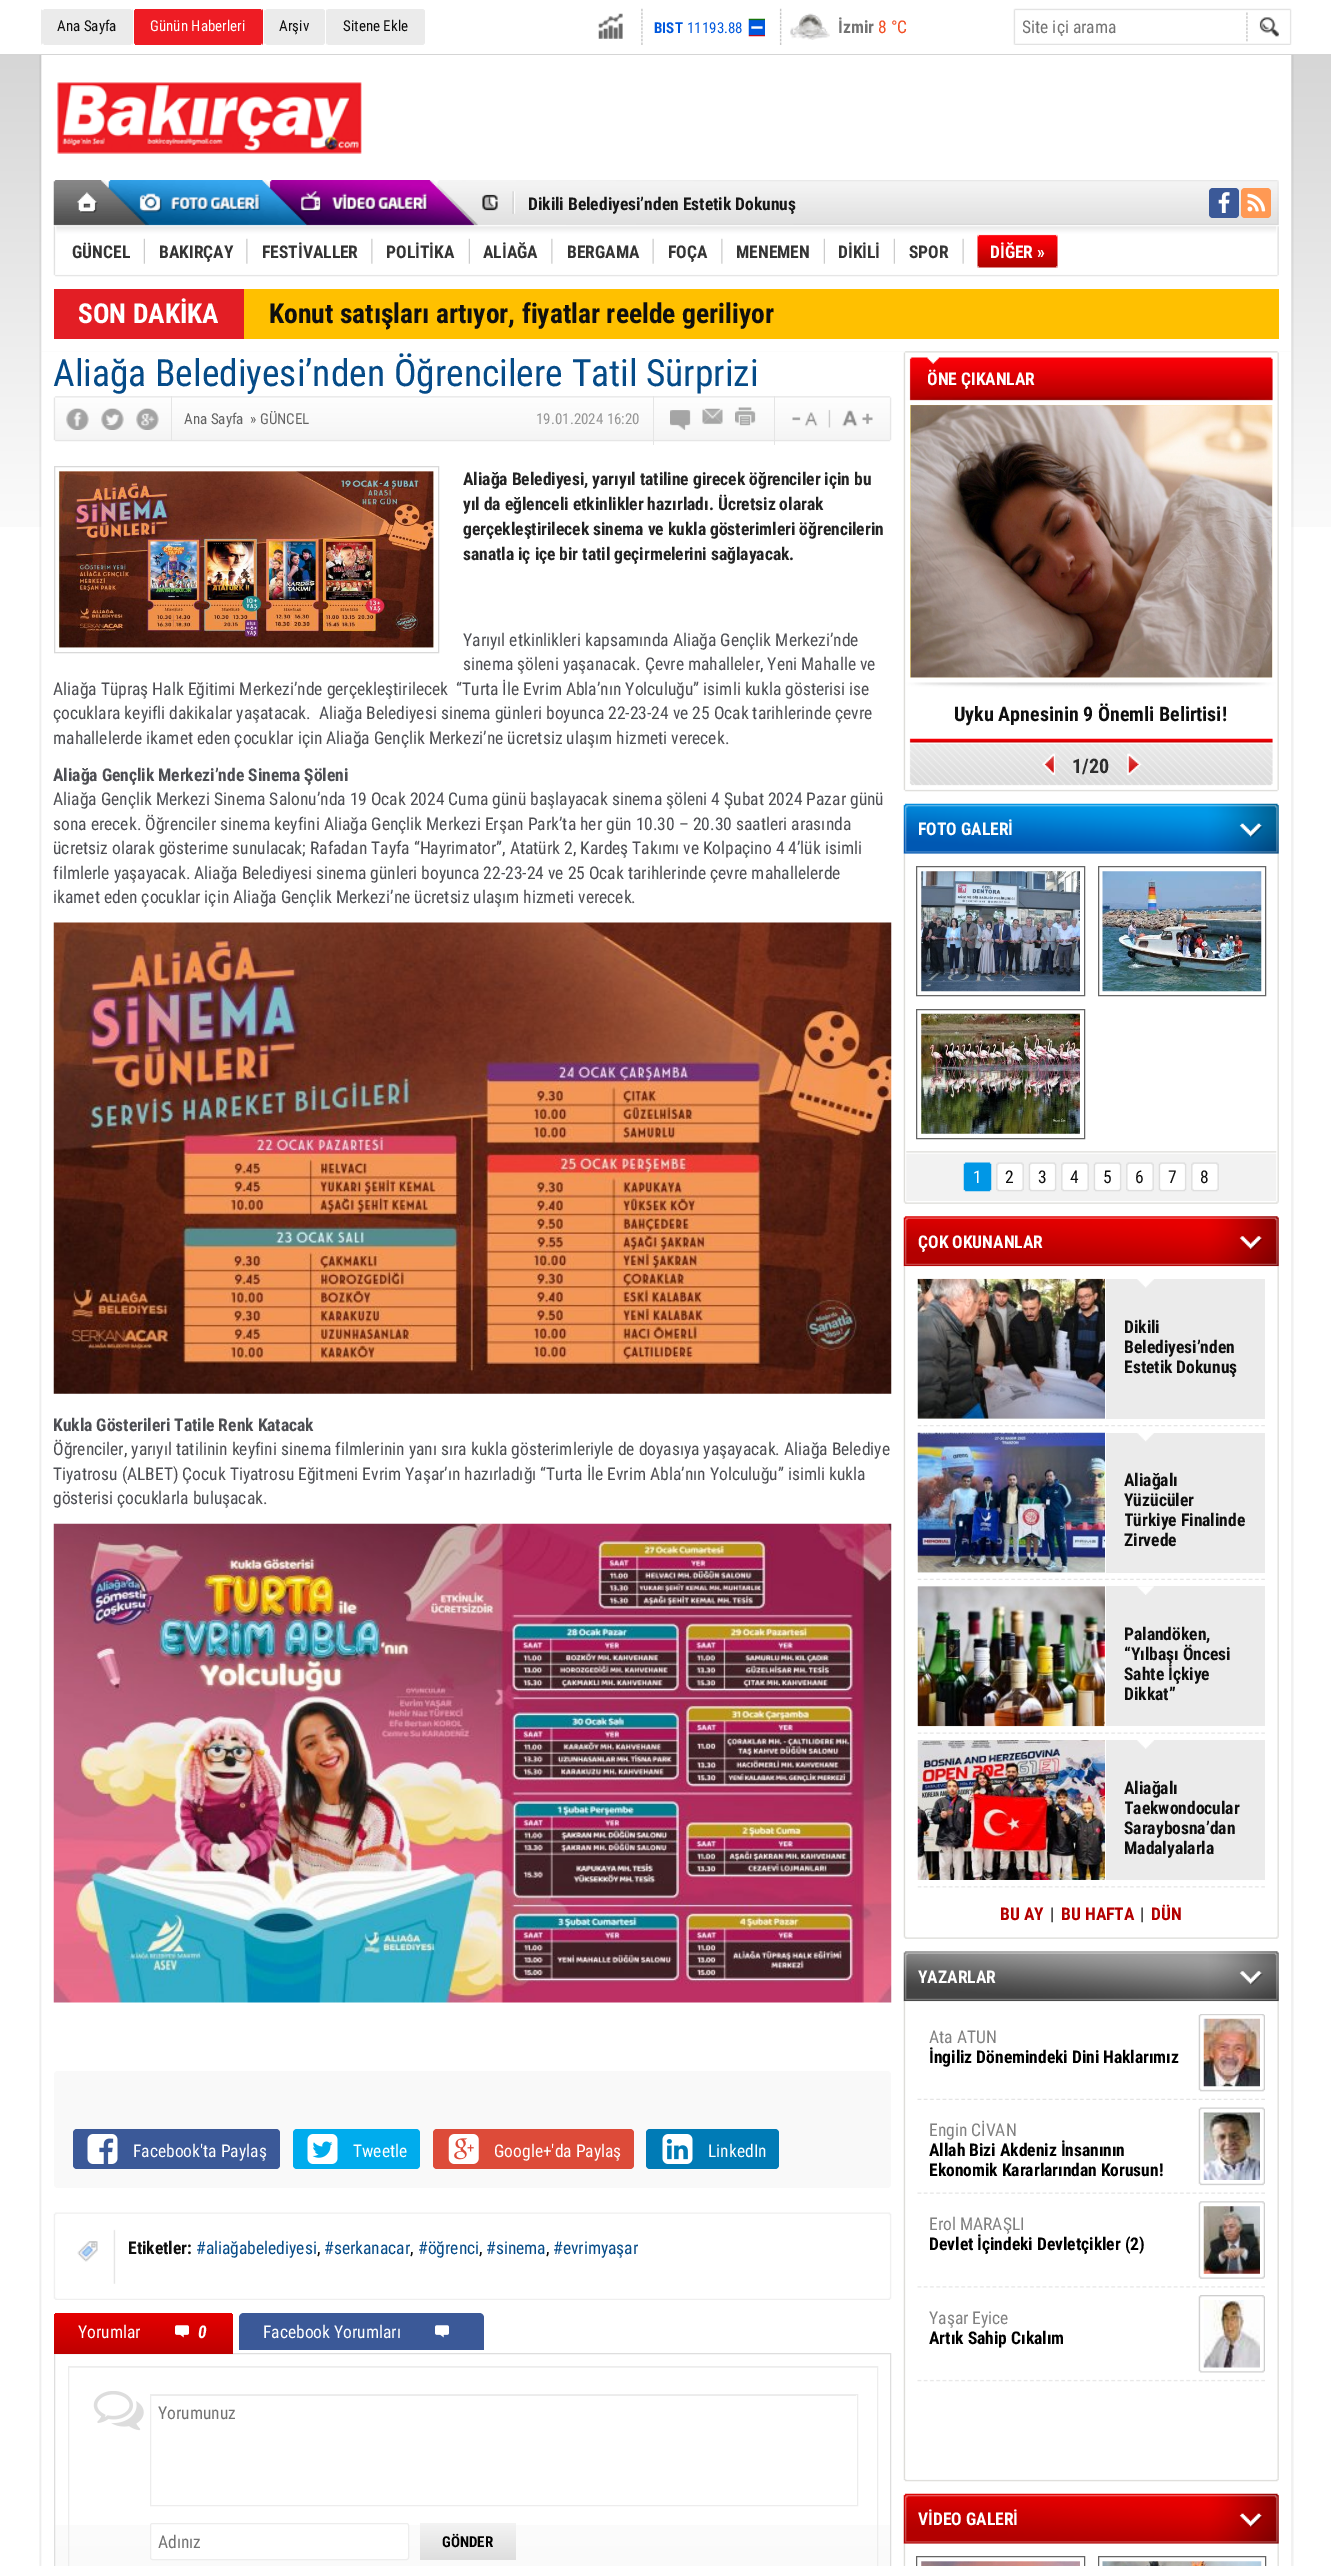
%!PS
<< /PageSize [1331 2566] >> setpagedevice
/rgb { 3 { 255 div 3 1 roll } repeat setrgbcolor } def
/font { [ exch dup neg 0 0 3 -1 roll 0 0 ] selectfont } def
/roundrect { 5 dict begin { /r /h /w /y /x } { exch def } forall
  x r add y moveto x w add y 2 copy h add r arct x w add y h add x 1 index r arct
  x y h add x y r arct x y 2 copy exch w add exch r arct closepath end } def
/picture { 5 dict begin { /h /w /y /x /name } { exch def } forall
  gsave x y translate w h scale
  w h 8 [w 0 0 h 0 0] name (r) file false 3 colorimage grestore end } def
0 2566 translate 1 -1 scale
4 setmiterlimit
255 255 255 rgb
0 0 1331 2566 rectfill
(img/1.rgb) 0 55 1331 472 picture
213 213 213 rgb
0 54 1331 1 rectfill
(img/2.rgb) 598 8 694 37 picture
235 235 235 rgb
41 9 92 36 rectfill
(img/3.rgb) 41 9 3 36 picture
(img/4.rgb) 131 9 2 36 picture
238 28 36 rgb
134 9 129 36 rectfill
(img/5.rgb) 134 9 1 36 picture
(img/6.rgb) 261 9 2 36 picture
235 235 235 rgb
264 9 61 36 rectfill
(img/7.rgb) 264 9 3 36 picture
(img/8.rgb) 323 9 2 36 picture
326 9 99 36 rectfill
(img/4.rgb) 326 9 2 36 picture
(img/8.rgb) 423 9 2 36 picture
(img/9.rgb) 748 18 17 19 picture
(img/10.rgb) 790 13 40 27 picture
(img/11.rgb) 39 55 1255 297 picture
(img/12.rgb) 53 180 1226 97 picture
(img/13.rgb) 57 82 305 72 picture
59 89 152 rgb
1209 188 30 30 4 roundrect fill
(img/14.rgb) 1218 192 12 21 picture
255 153 84 rgb
1241 188 30 30 4 roundrect fill
(img/15.rgb) 1247 193 19 19 picture
(img/16.rgb) 143 238 2 26 picture
(img/17.rgb) 246 238 2 26 picture
(img/17.rgb) 371 238 2 26 picture
(img/16.rgb) 468 238 2 26 picture
(img/17.rgb) 551 238 2 26 picture
(img/18.rgb) 652 238 2 26 picture
(img/17.rgb) 721 238 2 26 picture
(img/16.rgb) 823 238 2 26 picture
(img/16.rgb) 893 238 2 26 picture
(img/18.rgb) 962 238 2 26 picture
(img/19.rgb) 977 234 81 34 picture
(img/20.rgb) 977 235 2 33 picture
(img/21.rgb) 1056 235 2 33 picture
255 192 0 rgb
244 289 1035 50 rectfill
227 30 37 rgb
54 289 190 50 rectfill
(img/22.rgb) 39 351 1255 2215 picture
(img/23.rgb) 53 396 839 46 picture
229 229 229 rgb
171 396 1 45 rectfill
(img/24.rgb) 66 408 23 22 picture
(img/25.rgb) 101 408 23 22 picture
(img/26.rgb) 136 408 23 22 picture
653 396 1 49 rectfill
(img/27.rgb) 670 410 21 20 picture
(img/28.rgb) 702 408 21 17 picture
(img/29.rgb) 735 407 21 19 picture
774 396 1 49 rectfill
217 217 217 rgb
54.5 466.5 384 186 rectstroke
(img/30.rgb) 58 471 376 177 picture
(img/31.rgb) 53 922 839 472 picture
(img/32.rgb) 53 1523 839 480 picture
249 249 249 rgb
54 2071 837 117 4 roundrect fill
59 89 152 rgb
73 2129 207 40 4 roundrect fill
(img/33.rgb) 87 2134 31 30 picture
0 172 237 rgb
293 2129 127 40 4 roundrect fill
(img/34.rgb) 307 2134 31 30 picture
221 75 57 rgb
433 2129 201 40 4 roundrect fill
(img/35.rgb) 448 2134 31 30 picture
0 123 182 rgb
646 2129 133 40 4 roundrect fill
(img/36.rgb) 662 2134 31 30 picture
(img/37.rgb) 53 2212 839 88 picture
gsave 55 2525 moveto 890 2525 lineto 890 2566 lineto 55 2566 lineto closepath clip newpath
<< /ShadingType 2 /ColorSpace /DeviceRGB /Coords [473 2354 473 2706] /Extend [true true] /Function << /FunctionType 3 /Domain [0 1] /Functions [<< /FunctionType 2 /Domain [0 1] /C0 [1 1 1] /C1 [1 1 1] /N 1 >> << /FunctionType 2 /Domain [0 1] /C0 [1 1 1] /C1 [0.953 0.953 0.953] /N 1 >>] /Bounds [0.35] /Encode [0 1 0 1] >> >> shfill grestore
222 222 222 rgb
54.5 2353.5 836 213 rectstroke
gsave 59 2313 moveto 228 2313 lineto 231 2313 233 2315 233 2318 curveto 233 2354 lineto 54 2354 lineto 54 2318 lineto 54 2315 56 2313 59 2313 curveto closepath clip newpath
<< /ShadingType 2 /ColorSpace /DeviceRGB /Coords [143 2313 143 2354] /Extend [true true] /Function << /FunctionType 2 /Domain [0 1] /C0 [0.902 0 0] /C1 [0.745 0 0] /N 1 >> >> shfill grestore
(img/38.rgb) 175 2325 14 13 picture
59 89 152 rgb
244 2313 moveto 479 2313 lineto 482 2313 484 2315 484 2318 curveto 484 2350 lineto 239 2350 lineto 239 2318 lineto 239 2315 241 2313 244 2313 curveto closepath fill
(img/39.rgb) 435 2325 14 13 picture
gsave 68 2367 moveto 878 2367 lineto 878 2368 lineto 68 2368 lineto closepath clip newpath
<< /ShadingType 2 /ColorSpace /DeviceRGB /Coords [473 2075 473 2368] /Extend [true true] /Function << /FunctionType 3 /Domain [0 1] /Functions [<< /FunctionType 2 /Domain [0 1] /C0 [1 1 1] /C1 [1 1 1] /N 1 >> << /FunctionType 2 /Domain [0 1] /C0 [1 1 1] /C1 [0.953 0.953 0.953] /N 1 >>] /Bounds [0.5] /Encode [0 1 0 1] >> >> shfill grestore
237 237 237 rgb
68.5 2366.5 809 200 rectstroke
(img/40.rgb) 93 2391 51 40 picture
236 236 236 rgb
151 2395 705 1 rectfill
237 237 237 rgb
150.5 2394.5 707 111 rectstroke
255 255 255 rgb
150.5 2523.5 258 36 2 roundrect gsave fill grestore
237 237 237 rgb
stroke
gsave 420 2523 96 37 2.5 roundrect clip newpath
<< /ShadingType 2 /ColorSpace /DeviceRGB /Coords [468 2523 468 2560] /Extend [true true] /Function << /FunctionType 2 /Domain [0 1] /C0 [0.957 0.957 0.957] /C1 [0.871 0.871 0.871] /N 1 >> >> shfill grestore
(img/41.rgb) 903 351 376 441 picture
(img/42.rgb) 910 405 363 273 picture
(img/43.rgb) 1042 753 13 22 picture
(img/44.rgb) 1127 753 15 22 picture
(img/45.rgb) 903 803 376 51 picture
(img/54.rgb) 903 1201 376 3 picture
(img/46.rgb) 903 853 376 349 picture
101 101 101 rgb
916.5 866.5 168 129 rectstroke
(img/47.rgb) 921 871 159 121 picture
1098.5 866.5 167 129 rectstroke
(img/48.rgb) 1102 871 160 121 picture
916.5 1009.5 168 129 rectstroke
(img/49.rgb) 921 1013 159 121 picture
(img/50.rgb) 906 1151 371 50 picture
(img/51.rgb) 963 1162 29 30 picture
(img/52.rgb) 996 1162 28 30 picture
(img/53.rgb) 1028 1162 29 30 picture
(img/52.rgb) 1061 1162 28 30 picture
(img/53.rgb) 1093 1162 29 30 picture
(img/52.rgb) 1126 1162 28 30 picture
(img/53.rgb) 1158 1162 29 30 picture
(img/52.rgb) 1191 1162 28 30 picture
(img/55.rgb) 903 1216 376 51 picture
(img/54.rgb) 903 1936 376 3 picture
(img/56.rgb) 903 1266 376 671 picture
235 235 235 rgb
918 1279 347 140 rectfill
(img/57.rgb) 1137 1279 17 9 picture
255 255 255 rgb
1105 1279 1 140 rectfill
(img/58.rgb) 917 1278 188 141 picture
(img/59.rgb) 917 1425 348 2 picture
235 235 235 rgb
918 1433 347 140 rectfill
(img/60.rgb) 1137 1433 17 9 picture
255 255 255 rgb
1105 1433 1 140 rectfill
(img/61.rgb) 917 1432 188 141 picture
(img/62.rgb) 917 1578 348 2 picture
235 235 235 rgb
918 1586 347 140 rectfill
(img/63.rgb) 1137 1586 17 9 picture
255 255 255 rgb
1105 1586 1 140 rectfill
(img/64.rgb) 917 1586 188 141 picture
(img/65.rgb) 917 1732 348 2 picture
235 235 235 rgb
1106 1740 159 140 rectfill
(img/66.rgb) 1137 1740 17 9 picture
(img/67.rgb) 917 1740 188 140 picture
(img/68.rgb) 917 1886 348 2 picture
(img/69.rgb) 903 1951 376 51 picture
(img/79.rgb) 903 2478 376 4 picture
(img/70.rgb) 903 2001 376 478 picture
(img/71.rgb) 917 2014 348 86 picture
(img/72.rgb) 1203 2018 57 69 picture
(img/73.rgb) 917 2107 348 87 picture
(img/74.rgb) 1203 2112 57 68 picture
(img/75.rgb) 917 2201 348 87 picture
(img/76.rgb) 1203 2206 57 68 picture
(img/77.rgb) 917 2295 348 87 picture
(img/78.rgb) 1203 2300 57 68 picture
(img/80.rgb) 903 2493 376 51 picture
(img/81.rgb) 903 2543 376 23 picture
101 101 101 rgb
916.5 2556.5 168 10 rectstroke
(img/82.rgb) 921 2561 159 5 picture
1098.5 2556.5 167 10 rectstroke
(img/83.rgb) 1102 2561 160 5 picture
/RobotoCondensed-Regular 15 font
15 15 15 rgb
57 31 moveto (Ana Sayfa) show
255 255 255 rgb
150 31 moveto (Günün Haberleri) show
15 15 15 rgb
279 31 moveto (Arşiv) show
343 31 moveto (Sitene Ekle) show
/RobotoCondensed-Bold 15 font
0 88 221 rgb
654 33 moveto (BIST) show
/RobotoCondensed-Regular 15 font
687 33 moveto (11193.88) show
/RobotoCondensed-Bold 17.5 font
115 115 115 rgb
838 33 moveto (İzmir) show
/RobotoCondensed-Regular 17.5 font
242 78 35 rgb
878 33 moveto (8 °C) show
gsave
1023 16 218 20 rectclip
115 115 115 rgb
1022 33 moveto (Site içi arama) show
grestore
/RobotoCondensed-Bold 17.5 font
23 23 23 rgb
528 210 moveto (Dikili Belediyesi’nden Estetik Dokunuş) show
52 52 52 rgb
[
  [(GÜNCEL) 72 258]
  [(BAKIRÇAY) 159 258]
  [(FESTİVALLER) 262 258]
  [(POLİTİKA) 386 258]
  [(ALİAĞA) 483 258]
  [(BERGAMA) 567 258]
  [(FOÇA) 668 258]
  [(MENEMEN) 736 258]
  [(DİKİLİ) 838 258]
  [(SPOR) 909 258]
] { aload pop moveto show } forall
255 255 255 rgb
990 258 moveto (DİĞER ») show
/RobotoCondensed-Bold 27.5 font
78 323 moveto (SON DAKİKA) show
15 15 15 rgb
269 323 moveto (Konut satışları artıyor, fiyatlar reelde geriliyor) show
/RobotoCondensed-Regular 37.5 font
5 75 136 rgb
53 386 moveto (Aliağa Belediyesi’nden Öğrencilere Tatil Sürprizi) show
/RobotoCondensed-Regular 15 font
99 99 99 rgb
184 424 moveto (Ana Sayfa) show
250 424 moveto (» GÜNCEL) show
149 149 149 rgb
536 424 moveto (19.01.2024 16:20) show
/RobotoCondensed-Bold 17.5 font
36 36 36 rgb
[
  [(Aliağa Belediyesi, yarıyıl tatiline girecek öğrenciler için bu) 463 485]
  [(yıl da eğlenceli etkinlikler hazırladı. Ücretsiz olarak) 463 510]
  [(gerçekleştirilecek sinema ve kukla gösterimleri öğrencilerin) 463 535]
  [(sanatla iç içe bir tatil geçirmelerini sağlayacak.) 463 560]
] { aload pop moveto show } forall
/RobotoCondensed-Regular 17.5 font
77 78 83 rgb
[
  [(Yarıyıl etkinlikleri kapsamında Aliağa Gençlik Merkezi’nde) 463 646]
  [(sinema şöleni yaşanacak. Çevre mahalleler, Yeni Mahalle ve) 463 670]
  [(Aliağa Tüpraş Halk Eğitimi Merkezi’nde gerçekleştirilecek  “Turta İle Evrim Abla’nın Yolculuğu” isimli kukla gösterisi ise) 53 695]
  [(çocuklara keyifli dakikalar yaşatacak.  Aliağa Belediyesi sinema günleri boyunca 22-23-24 ve 25 Ocak tarihlerinde çevre) 53 719]
  [(mahallelerde ikamet eden çocuklar için Aliağa Gençlik Merkezi’ne ücretsiz ulaşım hizmeti verecek.) 53 744]
] { aload pop moveto show } forall
/RobotoCondensed-Bold 17.5 font
53 781 moveto (Aliağa Gençlik Merkezi’nde Sinema Şöleni) show
/RobotoCondensed-Regular 17.5 font
[
  [(Aliağa Gençlik Merkezi Sinema Salonu’nda 19 Ocak 2024 Cuma günü başlayacak sinema şöleni 4 Şubat 2024 Pazar günü) 53 805]
  [(sona erecek. Öğrenciler sinema keyfini Aliağa Gençlik Merkezi Erşan Park’ta her gün 10.30 – 20.30 saatleri arasında) 53 830]
  [(ücretsiz olarak gösterime sunulacak; Rafadan Tayfa “Hayrimator”, Atatürk 2, Kardeş Takımı ve Kolpaçino 4 4’lük isimli) 53 854]
  [(filmlerle yaşayacak. Aliağa Belediyesi sinema günleri boyunca 22-23-24 ve 25 Ocak tarihlerinde çevre mahallelerde) 53 879]
  [(ikamet eden çocuklar için Aliağa Gençlik Merkezi’ne ücretsiz ulaşım hizmeti verecek.) 53 903]
] { aload pop moveto show } forall
/RobotoCondensed-Bold 17.5 font
53 1431 moveto (Kukla Gösterileri Tatile Renk Katacak) show
/RobotoCondensed-Regular 17.5 font
[
  [(Öğrenciler, yarıyıl tatilinin keyfini sinema filmlerinin yanı sıra kukla gösterimleriyle de doyasıya yaşayacak. Aliağa Belediye) 53 1455]
  [(Tiyatrosu \(ALBET\) Çocuk Tiyatrosu Eğitmeni Evrim Yaşar’ın hazırladığı “Turta İle Evrim Abla’nın Yolculuğu” isimli kukla) 53 1480]
  [(gösterisi çocuklarla buluşacak.) 53 1504]
] { aload pop moveto show } forall
255 255 255 rgb
[
  [(Facebook'ta Paylaş) 133 2157]
  [(Tweetle) 353 2157]
  [(Google+'da Paylaş) 494 2157]
  [(LinkedIn) 708 2157]
] { aload pop moveto show } forall
/RobotoCondensed-Bold 17.5 font
15 15 15 rgb
128 2254 moveto (Etiketler:) show
/RobotoCondensed-Regular 17.5 font
5 75 136 rgb
196 2254 moveto (#aliağabelediyesi) show
15 15 15 rgb
317 2254 moveto (,) show
5 75 136 rgb
324 2254 moveto (#serkanacar) show
15 15 15 rgb
410 2254 moveto (,) show
5 75 136 rgb
418 2254 moveto (#öğrenci) show
15 15 15 rgb
479 2254 moveto (,) show
5 75 136 rgb
486 2254 moveto (#sinema) show
15 15 15 rgb
546 2254 moveto (,) show
5 75 136 rgb
553 2254 moveto (#evrimyaşar) show
255 255 255 rgb
78 2338 moveto (Yorumlar) show
/RobotoCondensed-BoldItalic 17.5 font
198 2338 moveto (0) show
/RobotoCondensed-Regular 17.5 font
263 2338 moveto (Facebook Yorumları) show
115 115 115 rgb
158 2419 moveto (Yorumunuz) show
158 2548 moveto (Adınız) show
/RobotoCondensed-Bold 15 font
0 0 0 rgb
442 2547 moveto (GÖNDER) show
gsave
928 358 327 42 rectclip
/RobotoCondensed-Bold 17.5 font
255 255 255 rgb
927 385 moveto (ÖNE ÇIKANLAR) show
grestore
/RobotoCondensed-Bold 20 font
15 15 15 rgb
954 721 moveto (Uyku Apnesinin 9 Önemli Belirtisi!) show
45 45 45 rgb
1072 773 moveto (1/20) show
/RobotoCondensed-Bold 17.5 font
255 255 255 rgb
918 835 moveto (FOTO GALERİ) show
/RobotoCondensed-Regular 17.5 font
973 1183 moveto (1) show
15 15 15 rgb
[
  [(2) 1005 1183]
  [(3) 1038 1183]
  [(4) 1070 1183]
  [(5) 1103 1183]
  [(6) 1135 1183]
  [(7) 1168 1183]
  [(8) 1200 1183]
] { aload pop moveto show } forall
/RobotoCondensed-Bold 17.5 font
255 255 255 rgb
918 1248 moveto (ÇOK OKUNANLAR) show
15 15 15 rgb
[
  [(Dikili) 1124 1333]
  [(Belediyesi’nden) 1124 1353]
  [(Estetik Dokunuş) 1124 1373]
  [(Aliağalı) 1124 1486]
  [(Yüzücüler) 1124 1506]
] { aload pop moveto show } forall
gsave
1125 1470 125 80 rectclip
1124 1526 moveto (Türkiye Finalinde) show
grestore
[
  [(Zirvede) 1124 1546]
  [(Palandöken,) 1124 1640]
  [(“Yılbaşı Öncesi) 1124 1660]
  [(Sahte İçkiye) 1124 1680]
  [(Dikkat”) 1124 1700]
  [(Aliağalı) 1124 1794]
] { aload pop moveto show } forall
gsave
1125 1778 125 80 rectclip
1124 1814 moveto (Taekwondocular) show
grestore
1124 1834 moveto (Saraybosna’dan) show
1124 1854 moveto (Madalyalarla) show
179 0 0 rgb
1000 1920 moveto (BU AY) show
/RobotoCondensed-Regular 17.5 font
15 15 15 rgb
1050 1920 moveto (|) show
/RobotoCondensed-Bold 17.5 font
179 0 0 rgb
1061 1920 moveto (BU HAFTA) show
/RobotoCondensed-Regular 17.5 font
15 15 15 rgb
1140 1920 moveto (|) show
/RobotoCondensed-Bold 17.5 font
179 0 0 rgb
1151 1920 moveto (DÜN) show
255 255 255 rgb
918 1983 moveto (YAZARLAR) show
/RobotoCondensed-Regular 17.5 font
129 129 129 rgb
929 2043 moveto (Ata ATUN) show
/RobotoCondensed-Bold 17.5 font
0 0 0 rgb
929 2063 moveto (İngiliz Dönemindeki Dini Haklarımız) show
/RobotoCondensed-Regular 17.5 font
129 129 129 rgb
929 2136 moveto (Engin CİVAN) show
/RobotoCondensed-Bold 17.5 font
0 0 0 rgb
929 2156 moveto (Allah Bizi Akdeniz İnsanının) show
929 2176 moveto (Ekonomik Kararlarından Korusun!) show
/RobotoCondensed-Regular 17.5 font
129 129 129 rgb
929 2230 moveto (Erol MARAŞLI) show
/RobotoCondensed-Bold 17.5 font
0 0 0 rgb
929 2250 moveto (Devlet İçindeki Devletçikler \(2\)) show
/RobotoCondensed-Regular 17.5 font
129 129 129 rgb
929 2324 moveto (Yaşar Eyice) show
/RobotoCondensed-Bold 17.5 font
0 0 0 rgb
929 2344 moveto (Artık Sahip Cıkalım) show
255 255 255 rgb
918 2525 moveto (VİDEO GALERİ) show
showpage
